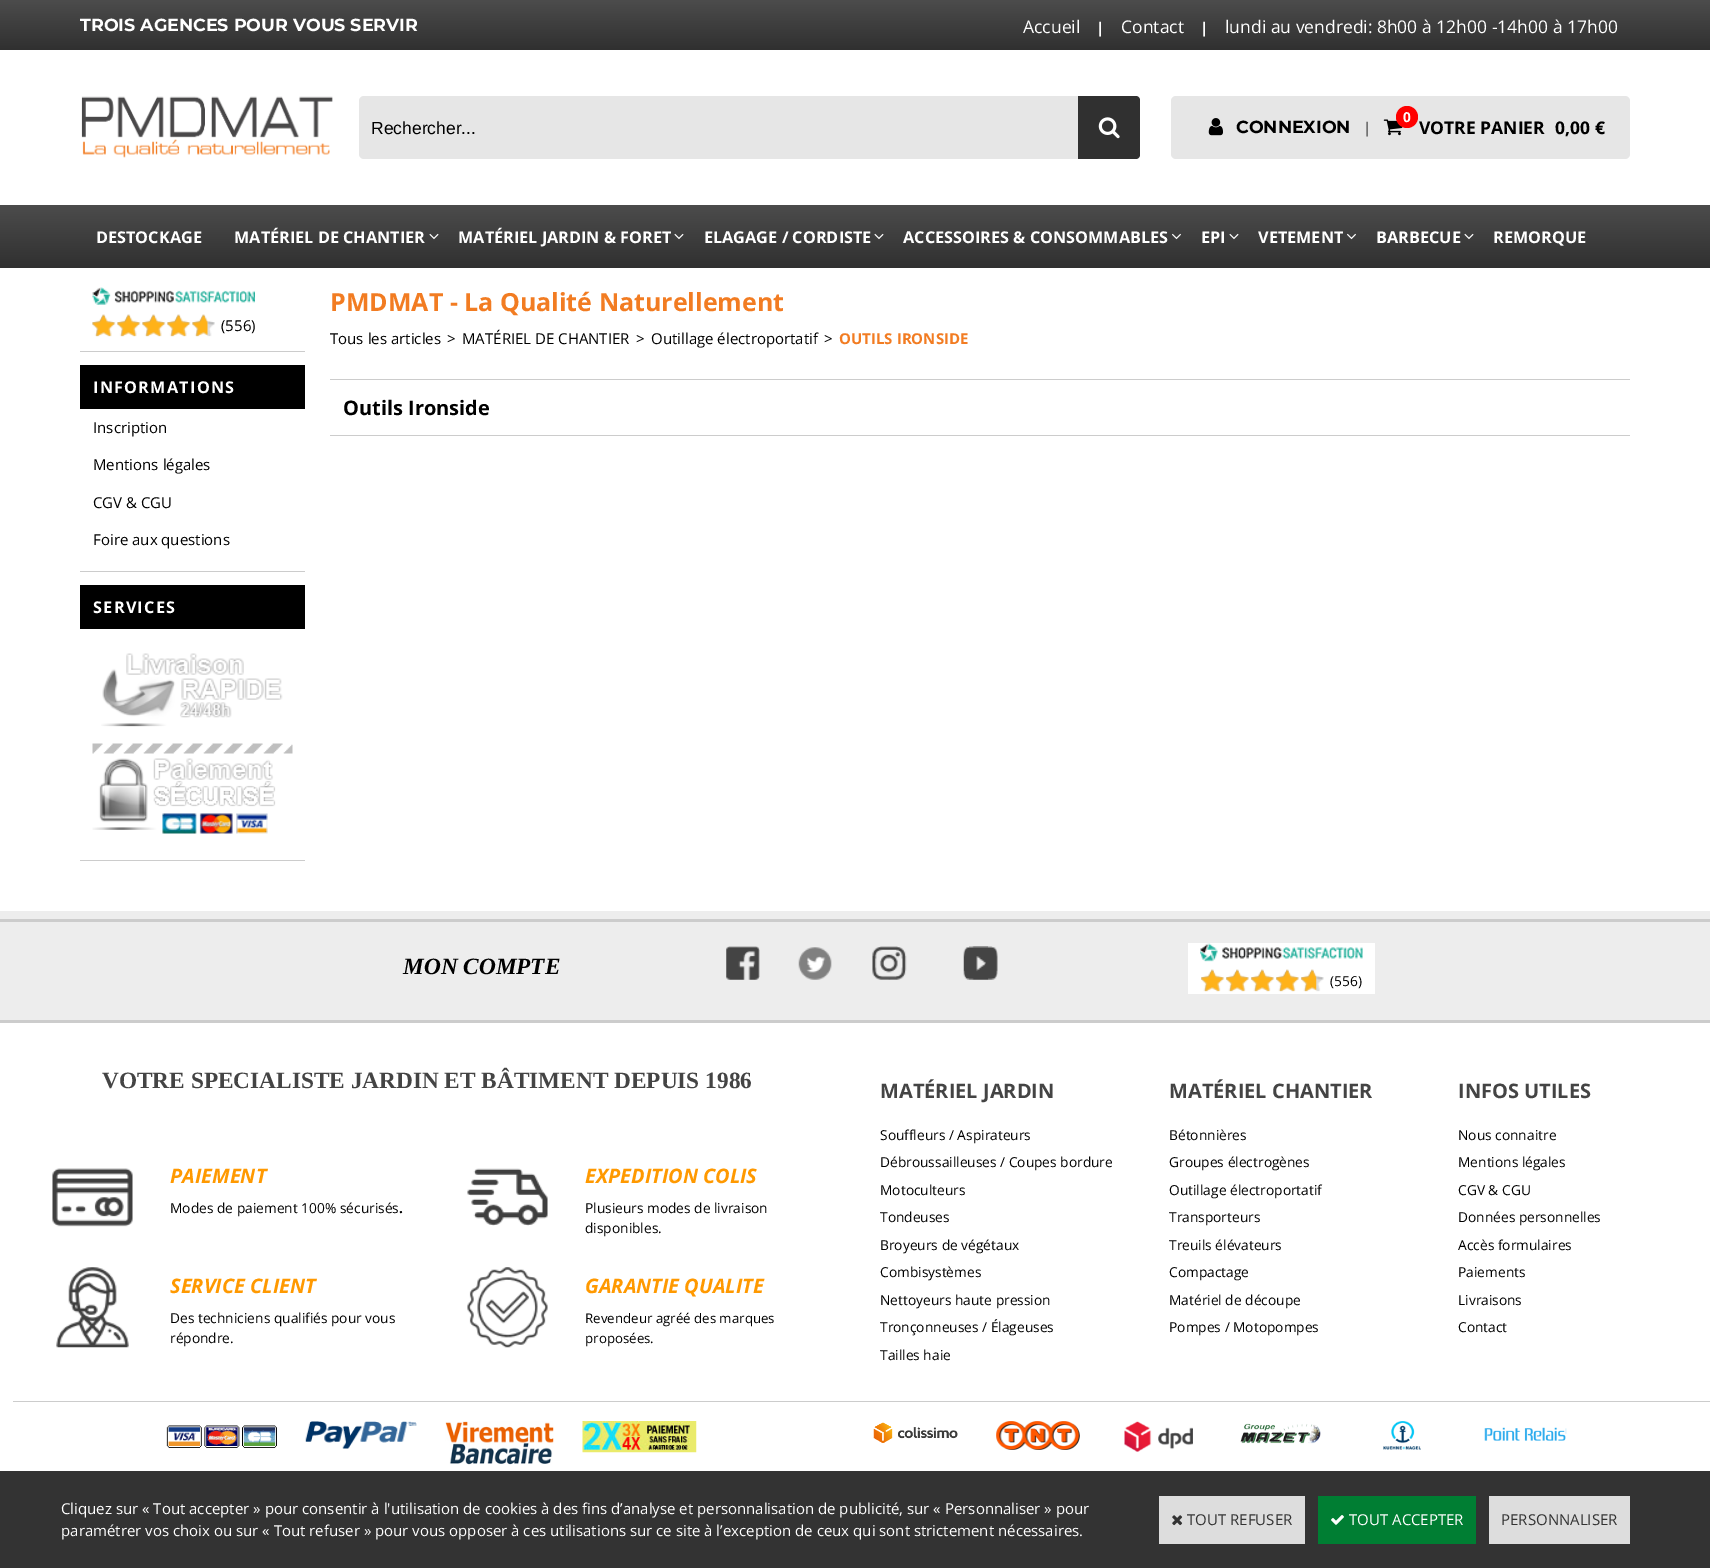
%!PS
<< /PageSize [1710 1568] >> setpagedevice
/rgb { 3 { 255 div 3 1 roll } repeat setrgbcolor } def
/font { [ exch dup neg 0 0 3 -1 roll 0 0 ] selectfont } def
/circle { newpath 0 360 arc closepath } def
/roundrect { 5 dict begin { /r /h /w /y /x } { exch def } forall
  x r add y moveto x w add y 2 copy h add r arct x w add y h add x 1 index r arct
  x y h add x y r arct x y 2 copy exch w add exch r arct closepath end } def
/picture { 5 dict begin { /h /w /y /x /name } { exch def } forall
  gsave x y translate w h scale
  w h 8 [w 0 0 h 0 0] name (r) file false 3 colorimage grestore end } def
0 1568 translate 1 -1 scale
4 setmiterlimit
255 255 255 rgb
0 0 1710 1568 rectfill
gsave 0 205 moveto 1710 205 lineto 1710 268 lineto 0 268 lineto closepath clip newpath
<< /ShadingType 2 /ColorSpace /DeviceRGB /Coords [855 205 855 268] /Extend [true true] /Function << /FunctionType 2 /Domain [0 1] /C0 [0.298 0.298 0.298] /C1 [0.188 0.188 0.188] /N 1 >> >> shfill grestore
gsave 0 0 moveto 1710 0 lineto 1710 50 lineto 0 50 lineto closepath clip newpath
<< /ShadingType 2 /ColorSpace /DeviceRGB /Coords [855 0 855 50] /Extend [true true] /Function << /FunctionType 2 /Domain [0 1] /C0 [0.298 0.298 0.298] /C1 [0.188 0.188 0.188] /N 1 >> >> shfill grestore
(img/1.rgb) 81 96 252 62 picture
230 230 230 rgb
359 96 781 63 5 roundrect fill
48 48 48 rgb
1078 96 moveto 1136 96 lineto 1138 96 1140 98 1140 100 curveto 1140 155 lineto 1140 157 1138 159 1136 159 curveto 1078 159 lineto closepath fill
(img/2.rgb) 1098 117 22 22 picture
230 230 230 rgb
1171 96 459 63 5 roundrect fill
(img/3.rgb) 1208 118 15 18 picture
(img/4.rgb) 1383 119 20 17 picture
255 0 0 rgb
1407 117 11 circle fill
(img/5.rgb) 429 233 10 7 picture
(img/5.rgb) 674 233 10 7 picture
(img/5.rgb) 874 233 10 7 picture
(img/6.rgb) 1172 233 9 7 picture
(img/5.rgb) 1229 233 10 7 picture
(img/6.rgb) 1347 233 9 7 picture
(img/5.rgb) 1464 233 10 7 picture
(img/7.rgb) 92 287 163 18 picture
(img/8.rgb) 92 314 123 23 picture
(img/9.rgb) 92 314 116 23 picture
[
  [80 351 225 1 204 204 204]
  [80 365 225 44 0 0 0]
  [80 571 225 1 204 204 204]
  [80 585 225 44 0 0 0]
] { aload pop rgb rectfill } forall
(img/10.rgb) 101 653 182 74 picture
(img/11.rgb) 92 743 201 91 picture
[
  [80 860 225 1 204 204 204]
  [330 379 1300 1 204 204 204]
  [330 435 1300 1 204 204 204]
  [0 911 1710 8 237 237 237]
  [0 922 1710 98 237 237 237]
  [0 919 1710 3 204 204 204]
] { aload pop rgb rectfill } forall
(img/12.rgb) 726 946 34 34 picture
(img/13.rgb) 798 947 34 33 picture
(img/14.rgb) 872 946 35 34 picture
(img/15.rgb) 963 946 35 34 picture
255 255 255 rgb
1188 943 187 51 rectfill
(img/16.rgb) 1200 943 163 19 picture
(img/17.rgb) 1201 969 123 23 picture
(img/18.rgb) 1201 969 116 23 picture
204 204 204 rgb
0 1020 1710 3 rectfill
(img/19.rgb) 52 1168 81 59 picture
(img/20.rgb) 467 1168 81 58 picture
(img/21.rgb) 56 1267 73 81 picture
(img/22.rgb) 467 1267 81 81 picture
13 1401 1697 1 rectfill
(img/23.rgb) 166 1425 111 23 picture
(img/24.rgb) 305 1421 112 28 picture
(img/25.rgb) 445 1421 109 44 picture
(img/26.rgb) 582 1421 115 32 picture
(img/27.rgb) 873 1422 85 21 picture
(img/28.rgb) 996 1421 84 29 picture
(img/29.rgb) 1124 1421 69 31 picture
(img/30.rgb) 1240 1423 81 21 picture
(img/31.rgb) 1383 1421 38 29 picture
(img/32.rgb) 1484 1427 83 14 picture
51 51 51 rgb
0 1471 1710 97 rectfill
221 221 221 rgb
1159 1496 146 48 rectfill
(img/33.rgb) 1172 1515 11 11 picture
0 126 51 rgb
1318 1496 158 48 rectfill
(img/34.rgb) 1331 1515 13 10 picture
221 221 221 rgb
1489 1496 141 48 rectfill
/Montserrat-Bold 17.5 font
255 255 255 rgb
80 31 moveto (TROIS AGENCES POUR VOUS SERVIR) show
/OpenSans-Regular 17.5 font
1023 33 moveto (Accueil) show
/OpenSans-Bold 15 font
1096 33 moveto (|) show
/OpenSans-Regular 17.5 font
1121 33 moveto (Contact) show
/OpenSans-Bold 15 font
1200 33 moveto (|) show
/OpenSans-Regular 17.5 font
1225 33 moveto (lundi au vendredi: 8h00 à 12h00 -14h00 à 17h00) show
/LiberationSans-Regular 17.5 font
0 0 0 rgb
371 134 moveto (Rechercher...) show
/Montserrat-Bold 17.5 font
1236 133 moveto (CONNEXION) show
/OpenSans-Bold 15 font
115 115 115 rgb
1363 133 moveto (|) show
/OpenSans-Bold 13.75 font
255 255 255 rgb
1403 122 moveto (0) show
/OpenSans-Bold 17.5 font
0 0 0 rgb
1555 134 moveto (0,00 €) show
1419 134 moveto (VOTRE PANIER) show
/OpenSans-Bold 16.25 font
255 255 255 rgb
[
  [(DESTOCKAGE) 96 243]
  [(MATÉRIEL DE CHANTIER) 234 243]
  [(MATÉRIEL JARDIN & FORET) 458 243]
  [(ELAGAGE / CORDISTE) 704 243]
  [(ACCESSOIRES & CONSOMMABLES) 903 243]
  [(EPI) 1201 243]
  [(VETEMENT) 1258 243]
  [(BARBECUE) 1376 243]
  [(REMORQUE) 1493 243]
] { aload pop moveto show } forall
/OpenSans-Regular 15 font
0 0 0 rgb
221 331 moveto (\(556\)) show
/OpenSans-Bold 16.25 font
255 255 255 rgb
93 393 moveto 1.25 0 (INFORMATIONS) ashow
/OpenSans-Regular 15 font
0 0 0 rgb
[
  [(Inscription) 93 433]
  [(Mentions légales) 93 470]
  [(CGV & CGU) 93 508]
  [(Foire aux questions) 93 545]
] { aload pop moveto show } forall
/OpenSans-Bold 16.25 font
255 255 255 rgb
93 613 moveto 1.25 0 (SERVICES) ashow
/OpenSans-Bold 25 font
242 124 34 rgb
330 311 moveto (PMDMAT - La Qualité Naturellement) show
/OpenSans-Regular 15 font
0 0 0 rgb
[
  [(Tous les articles) 330 344]
  [(>) 447 344]
  [(MATÉRIEL DE CHANTIER) 462 344]
  [(>) 636 344]
  [(Outillage électroportatif) 651 344]
  [(>) 824 344]
] { aload pop moveto show } forall
/OpenSans-Bold 15 font
242 124 34 rgb
839 344 moveto (OUTILS IRONSIDE) show
/OpenSans-Bold 20 font
0 0 0 rgb
343 415 moveto (Outils Ironside) show
/LiberationSerif-BoldItalic 23.3 font
403 974 moveto (MON COMPTE) show
/OpenSans-Regular 13.75 font
1330 986 moveto (\(556\)) show
/LiberationSerif-Bold 23.3 font
68 68 68 rgb
102 1088 moveto (VOTRE SPECIALISTE JARDIN ET BÂTIMENT DEPUIS 1986) show
/OpenSans-BoldItalic 20 font
255 153 0 rgb
170 1183 moveto (PAIEMENT) show
/OpenSans-Regular 13.75 font
0 0 0 rgb
170 1213 moveto (Modes de paiement 100% sécurisés) show
/OpenSans-Bold 13.75 font
399 1213 moveto (.) show
/OpenSans-BoldItalic 20 font
255 153 0 rgb
585 1183 moveto (EXPEDITION COLIS) show
/OpenSans-Regular 13.75 font
0 0 0 rgb
585 1213 moveto (Plusieurs modes de livraison) show
585 1233 moveto (disponibles.) show
/OpenSans-BoldItalic 20 font
255 153 0 rgb
170 1293 moveto (SERVICE CLIENT) show
/OpenSans-Regular 13.75 font
0 0 0 rgb
170 1323 moveto (Des techniciens qualifiés pour vous) show
170 1343 moveto (répondre.) show
/OpenSans-BoldItalic 20 font
255 153 0 rgb
585 1293 moveto (GARANTIE QUALITE) show
/OpenSans-Regular 13.3 font
0 0 0 rgb
585 1323 moveto (Revendeur agréé des marques) show
585 1343 moveto (proposées.) show
/OpenSans-Bold 20 font
68 68 68 rgb
880 1098 moveto (MATÉRIEL JARDIN) show
/OpenSans-Regular 13.75 font
0 0 0 rgb
[
  [(Souffleurs / Aspirateurs) 880 1140]
  [(Débroussailleuses / Coupes bordure) 880 1167]
  [(Motoculteurs) 880 1195]
  [(Tondeuses) 880 1222]
  [(Broyeurs de végétaux) 880 1250]
  [(Combisystèmes) 880 1277]
  [(Nettoyeurs haute pression) 880 1305]
  [(Tronçonneuses / Élageuses) 880 1332]
  [(Tailles haie) 880 1360]
] { aload pop moveto show } forall
/OpenSans-Bold 20 font
68 68 68 rgb
1169 1098 moveto (MATÉRIEL CHANTIER) show
/OpenSans-Regular 13.75 font
0 0 0 rgb
[
  [(Bétonnières) 1169 1140]
  [(Groupes électrogènes) 1169 1167]
  [(Outillage électroportatif) 1169 1195]
  [(Transporteurs) 1169 1222]
  [(Treuils élévateurs) 1169 1250]
  [(Compactage) 1169 1277]
  [(Matériel de découpe) 1169 1305]
  [(Pompes / Motopompes) 1169 1332]
] { aload pop moveto show } forall
/OpenSans-Bold 20 font
68 68 68 rgb
1458 1098 moveto (INFOS UTILES) show
/OpenSans-Regular 13.75 font
0 0 0 rgb
[
  [(Nous connaitre) 1458 1140]
  [(Mentions légales) 1458 1167]
  [(CGV & CGU) 1458 1195]
  [(Données personnelles) 1458 1222]
  [(Accès formulaires) 1458 1250]
  [(Paiements) 1458 1277]
  [(Livraisons) 1458 1305]
  [(Contact) 1458 1332]
] { aload pop moveto show } forall
/OpenSans-Regular 15 font
255 255 255 rgb
61 1514 moveto (Cliquez sur « Tout accepter » pour consentir à l'utilisation de cookies à des fins d’analyse et personnalisation de publicité, sur « Personnaliser » pour) show
61 1536 moveto (paramétrer vos choix ou sur « Tout refuser » pour vous opposer à ces utilisations sur ce site à l’exception de ceux qui sont strictement nécessaires.) show
51 51 51 rgb
1187 1525 moveto (TOUT REFUSER) show
255 255 255 rgb
1349 1525 moveto (TOUT ACCEPTER) show
51 51 51 rgb
1501 1525 moveto (PERSONNALISER) show
showpage
